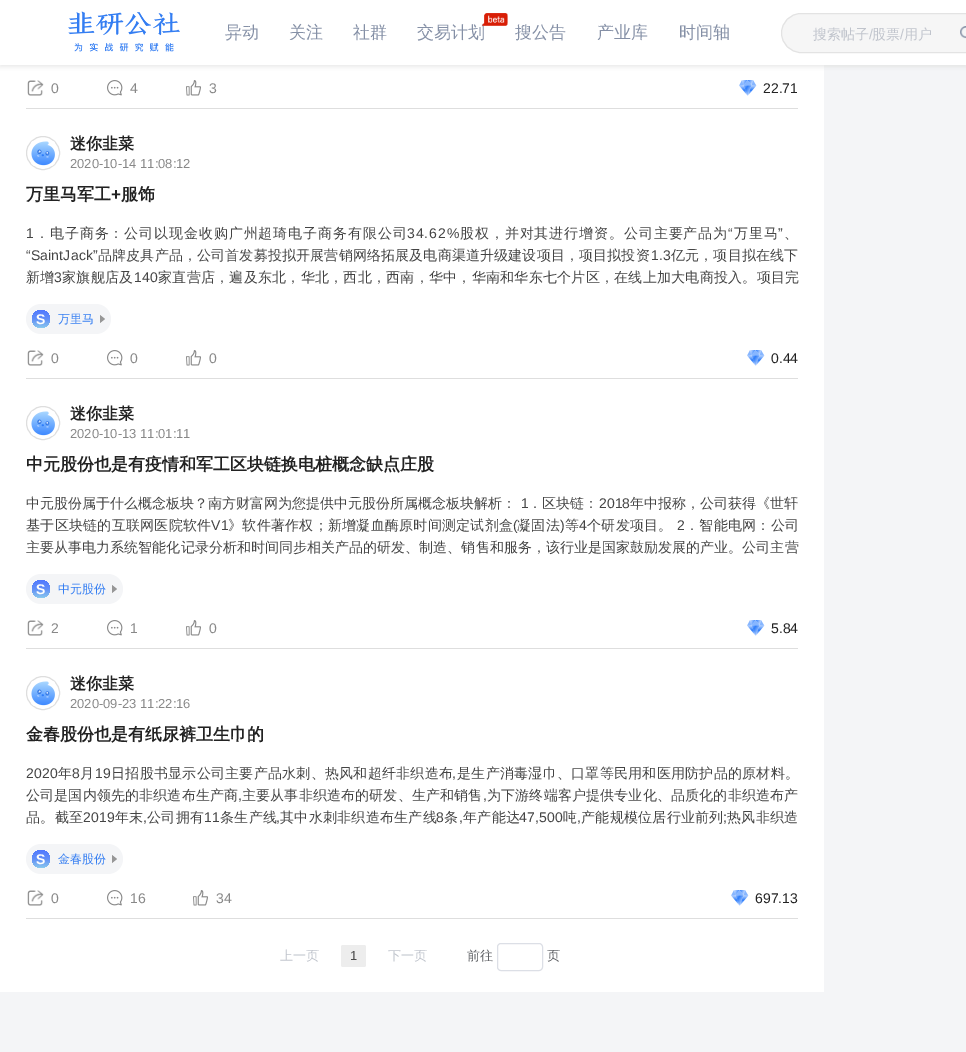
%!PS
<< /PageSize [966 1052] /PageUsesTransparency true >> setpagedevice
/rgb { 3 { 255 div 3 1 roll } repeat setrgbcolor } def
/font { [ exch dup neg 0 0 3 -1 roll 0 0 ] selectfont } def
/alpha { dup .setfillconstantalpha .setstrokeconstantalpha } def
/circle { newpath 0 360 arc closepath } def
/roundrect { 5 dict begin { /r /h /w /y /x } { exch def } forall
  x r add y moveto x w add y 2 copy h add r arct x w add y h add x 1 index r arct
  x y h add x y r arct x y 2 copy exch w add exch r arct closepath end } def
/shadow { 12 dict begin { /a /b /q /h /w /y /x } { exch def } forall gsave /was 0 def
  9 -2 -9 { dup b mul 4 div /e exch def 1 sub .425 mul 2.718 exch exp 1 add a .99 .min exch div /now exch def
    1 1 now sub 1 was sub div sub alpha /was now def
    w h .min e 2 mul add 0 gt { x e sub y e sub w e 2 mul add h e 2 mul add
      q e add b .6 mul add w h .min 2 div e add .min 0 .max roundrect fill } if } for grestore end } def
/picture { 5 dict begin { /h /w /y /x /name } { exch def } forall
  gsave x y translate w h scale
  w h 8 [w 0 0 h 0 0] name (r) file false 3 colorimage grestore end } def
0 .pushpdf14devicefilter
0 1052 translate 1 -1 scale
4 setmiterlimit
244 245 247 rgb
0 0 966 1052 rectfill
255 255 255 rgb
0 65 824 927 rectfill
211 211 211 rgb
0 2 966 65 0 2 0.5 shadow
255 255 255 rgb
0 0 966 65 rectfill
(img/1.rgb) 68 11 112 41 picture
246 246 246 rgb
781.5 13.5 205 39 19.5 roundrect gsave fill grestore
227 227 227 rgb
stroke
(img/3.rgb) 960 26 6 13 picture
(img/4.rgb) 27 80 17 16 picture
(img/5.rgb) 107 80 16 16 picture
(img/6.rgb) 186 80 15 16 picture
(img/7.rgb) 739 80 18 16 picture
222 222 222 rgb
26 108 772 1 0.5 roundrect fill
43 153 16.5 circle stroke
(img/8.rgb) 31 141 24 25 picture
244 245 247 rgb
26 304 85 30 15 roundrect fill
gsave 41 319 9 circle clip newpath
<< /ShadingType 2 /ColorSpace /DeviceRGB /Coords [41 310 41 328] /Extend [true true] /Function << /FunctionType 3 /Domain [0 1] /Functions [<< /FunctionType 2 /Domain [0 1] /C0 [0.322 0.475 1] /C1 [0.384 0.561 0.969] /N 1 >> << /FunctionType 2 /Domain [0 1] /C0 [0.384 0.561 0.969] /C1 [0.541 0.784 0.933] /N 1 >>] /Bounds [0.5] /Encode [0 1 0 1] >> >> shfill grestore
151 151 151 rgb
100 323 moveto 100 315 lineto 105 319 lineto closepath fill
(img/4.rgb) 27 350 17 16 picture
(img/5.rgb) 107 350 16 16 picture
(img/6.rgb) 186 350 15 16 picture
(img/7.rgb) 747 350 18 16 picture
222 222 222 rgb
26 378 772 1 0.5 roundrect fill
43 423 16.5 circle stroke
(img/8.rgb) 31 411 24 25 picture
244 245 247 rgb
26 574 97 30 15 roundrect fill
gsave 41 589 9 circle clip newpath
<< /ShadingType 2 /ColorSpace /DeviceRGB /Coords [41 580 41 598] /Extend [true true] /Function << /FunctionType 3 /Domain [0 1] /Functions [<< /FunctionType 2 /Domain [0 1] /C0 [0.322 0.475 1] /C1 [0.384 0.561 0.969] /N 1 >> << /FunctionType 2 /Domain [0 1] /C0 [0.384 0.561 0.969] /C1 [0.541 0.784 0.933] /N 1 >>] /Bounds [0.5] /Encode [0 1 0 1] >> >> shfill grestore
151 151 151 rgb
112 593 moveto 112 585 lineto 117 589 lineto closepath fill
(img/4.rgb) 27 620 17 16 picture
(img/5.rgb) 107 620 16 16 picture
(img/6.rgb) 186 620 15 16 picture
(img/7.rgb) 747 620 18 16 picture
222 222 222 rgb
26 648 772 1 0.5 roundrect fill
43 693 16.5 circle stroke
(img/8.rgb) 31 681 24 25 picture
244 245 247 rgb
26 844 97 30 15 roundrect fill
gsave 41 859 9 circle clip newpath
<< /ShadingType 2 /ColorSpace /DeviceRGB /Coords [41 850 41 868] /Extend [true true] /Function << /FunctionType 3 /Domain [0 1] /Functions [<< /FunctionType 2 /Domain [0 1] /C0 [0.322 0.475 1] /C1 [0.384 0.561 0.969] /N 1 >> << /FunctionType 2 /Domain [0 1] /C0 [0.384 0.561 0.969] /C1 [0.541 0.784 0.933] /N 1 >>] /Bounds [0.5] /Encode [0 1 0 1] >> >> shfill grestore
151 151 151 rgb
112 863 moveto 112 855 lineto 117 859 lineto closepath fill
(img/4.rgb) 27 890 17 16 picture
(img/5.rgb) 107 890 16 16 picture
(img/6.rgb) 193 890 15 16 picture
(img/7.rgb) 731 890 18 16 picture
222 222 222 rgb
26 918 772 1 0.5 roundrect fill
237 237 237 rgb
341 945 25 22 2 roundrect fill
220 223 230 rgb
497.5 943.5 45 27 3.5 roundrect stroke
/WenQuanYiZenHei-Medium 17 font
133 144 166 rgb
[
  [(异动) 225 38]
  [(关注) 289 38]
  [(社群) 353 38]
  [(交易计划) 417 38]
] { aload pop moveto show } forall
(img/2.rgb) 481 13 27 13 picture
[
  [(搜公告) 515 38]
  [(产业库) 597 38]
  [(时间轴) 679 38]
] { aload pop moveto show } forall
/WenQuanYiZenHei-Medium 14 font
192 196 204 rgb
813 39 moveto (搜索帖子) show
/LiberationSans-Regular 14 font
869 39 moveto (/) show
/WenQuanYiZenHei-Medium 14 font
872 39 moveto (股票) show
/LiberationSans-Regular 14 font
900 39 moveto (/) show
/WenQuanYiZenHei-Medium 14 font
904 39 moveto (用户) show
/LiberationSans-Regular 14 font
136 136 136 rgb
[
  [(0) 51 93]
  [(4) 130 93]
  [(3) 209 93]
] { aload pop moveto show } forall
34 34 34 rgb
763 93 moveto (22.71) show
/WenQuanYiZenHei-Bold 16 font
70 149 moveto (迷你韭菜) show
/LiberationSans-Regular 13 font
136 136 136 rgb
70 168 moveto (2020-10-14 11:08:12) show
/WenQuanYiZenHei-Bold 17 font
34 34 34 rgb
26 200 moveto (万里马军工) show
/LiberationSans-Bold 17 font
111 200 moveto (+) show
/WenQuanYiZenHei-Bold 17 font
121 200 moveto (服饰) show
/LiberationSans-Regular 14 font
68 68 68 rgb
26 238 moveto 0.9 0 (1) ashow
/WenQuanYiZenHei-Medium 14 font
35 238 moveto 0.9 0 (．电子商务：公司以现金收购广州超琦电子商务有限公司) ashow
/LiberationSans-Regular 14 font
407 238 moveto 0.9 0 (34.62%) ashow
/WenQuanYiZenHei-Medium 14 font
460 238 moveto 0.9 0 (股权，并对其进行增资。公司主要产品为) ashow
/LiberationSans-Regular 14 font
728 238 moveto 0.9 0 (“) ashow
/WenQuanYiZenHei-Medium 14 font
734 238 moveto 0.9 0 (万里马) ashow
/LiberationSans-Regular 14 font
778 238 moveto 0.9 0 (”) ashow
/WenQuanYiZenHei-Medium 14 font
784 238 moveto 0.9 0 (、) ashow
/LiberationSans-Regular 14 font
26 260 moveto 0.15 0 (“SaintJack”) ashow
/WenQuanYiZenHei-Medium 14 font
98 260 moveto 0.15 0 (品牌皮具产品，公司首发募投拟开展营销网络拓展及电商渠道升级建设项目，项目拟投资) ashow
/LiberationSans-Regular 14 font
651 260 moveto 0.15 0 (1.3) ashow
/WenQuanYiZenHei-Medium 14 font
671 260 moveto 0.15 0 (亿元，项目拟在线下) ashow
26 282 moveto 0.25 0 (新增) ashow
/LiberationSans-Regular 14 font
54 282 moveto 0.25 0 (3) ashow
/WenQuanYiZenHei-Medium 14 font
62 282 moveto 0.25 0 (家旗舰店及) ashow
/LiberationSans-Regular 14 font
134 282 moveto 0.25 0 (140) ashow
/WenQuanYiZenHei-Medium 14 font
158 282 moveto 0.25 0 (家直营店，遍及东北，华北，西北，西南，华中，华南和华东七个片区，在线上加大电商投入。项目完) ashow
/LiberationSans-Bold 14 font
255 255 255 rgb
36 324 moveto (S) show
/WenQuanYiZenHei-Medium 12 font
51 125 242 rgb
58 323 moveto (万里马) show
/LiberationSans-Regular 14 font
136 136 136 rgb
[
  [(0) 51 363]
  [(0) 130 363]
  [(0) 209 363]
] { aload pop moveto show } forall
34 34 34 rgb
771 363 moveto (0.44) show
/WenQuanYiZenHei-Bold 16 font
70 419 moveto (迷你韭菜) show
/LiberationSans-Regular 13 font
136 136 136 rgb
70 438 moveto (2020-10-13 11:01:11) show
/WenQuanYiZenHei-Bold 17 font
34 34 34 rgb
26 470 moveto (中元股份也是有疫情和军工区块链换电桩概念缺点庄股) show
/WenQuanYiZenHei-Medium 14 font
68 68 68 rgb
26 508 moveto (中元股份属于什么概念板块？南方财富网为您提供中元股份所属概念板块解析：) show
/LiberationSans-Regular 14 font
521 508 moveto (1) show
/WenQuanYiZenHei-Medium 14 font
528 508 moveto (．区块链：) show
/LiberationSans-Regular 14 font
599 508 moveto (2018) show
/WenQuanYiZenHei-Medium 14 font
630 508 moveto (年中报称，公司获得《世轩) show
26 530 moveto 0.25 0 (基于区块链的互联网医院软件) ashow
/LiberationSans-Regular 14 font
211 530 moveto 0.25 0 (V1) ashow
/WenQuanYiZenHei-Medium 14 font
228 530 moveto 0.25 0 (》软件著作权；新增凝血酶原时间测定试剂盒) ashow
/LiberationSans-Regular 14 font
513 530 moveto 0.25 0 (\() ashow
/WenQuanYiZenHei-Medium 14 font
517 530 moveto 0.25 0 (凝固法) ashow
/LiberationSans-Regular 14 font
560 530 moveto 0.25 0 (\)) ashow
/WenQuanYiZenHei-Medium 14 font
565 530 moveto 0.25 0 (等) ashow
/LiberationSans-Regular 14 font
579 530 moveto 0.25 0 (4) ashow
/WenQuanYiZenHei-Medium 14 font
587 530 moveto 0.25 0 (个研发项目。) ashow
/LiberationSans-Regular 14 font
677 530 moveto 0.25 0 (2) ashow
/WenQuanYiZenHei-Medium 14 font
685 530 moveto 0.25 0 (．智能电网：公司) ashow
26 552 moveto 0.05 0 (主要从事电力系统智能化记录分析和时间同步相关产品的研发、制造、销售和服务，该行业是国家鼓励发展的产业。公司主营) ashow
/LiberationSans-Bold 14 font
255 255 255 rgb
36 594 moveto (S) show
/WenQuanYiZenHei-Medium 12 font
51 125 242 rgb
58 593 moveto (中元股份) show
/LiberationSans-Regular 14 font
136 136 136 rgb
[
  [(2) 51 633]
  [(1) 130 633]
  [(0) 209 633]
] { aload pop moveto show } forall
34 34 34 rgb
771 633 moveto (5.84) show
/WenQuanYiZenHei-Bold 16 font
70 689 moveto (迷你韭菜) show
/LiberationSans-Regular 13 font
136 136 136 rgb
70 708 moveto (2020-09-23 11:22:16) show
/WenQuanYiZenHei-Bold 17 font
34 34 34 rgb
26 740 moveto (金春股份也是有纸尿裤卫生巾的) show
/LiberationSans-Regular 14 font
68 68 68 rgb
26 778 moveto 0.25 0 (2020) ashow
/WenQuanYiZenHei-Medium 14 font
58 778 moveto 0.25 0 (年) ashow
/LiberationSans-Regular 14 font
72 778 moveto 0.25 0 (8) ashow
/WenQuanYiZenHei-Medium 14 font
80 778 moveto 0.25 0 (月) ashow
/LiberationSans-Regular 14 font
95 778 moveto 0.25 0 (19) ashow
/WenQuanYiZenHei-Medium 14 font
111 778 moveto 0.25 0 (日招股书显示公司主要产品水刺、热风和超纤非织造布) ashow
/LiberationSans-Regular 14 font
452 778 moveto 0.25 0 (,) ashow
/WenQuanYiZenHei-Medium 14 font
457 778 moveto 0.25 0 (是生产消毒湿巾、口罩等民用和医用防护品的原材料。) ashow
26 800 moveto 0.15 0 (公司是国内领先的非织造布生产商) ashow
/LiberationSans-Regular 14 font
238 800 moveto 0.15 0 (,) ashow
/WenQuanYiZenHei-Medium 14 font
242 800 moveto 0.15 0 (主要从事非织造布的研发、生产和销售) ashow
/LiberationSans-Regular 14 font
483 800 moveto 0.15 0 (,) ashow
/WenQuanYiZenHei-Medium 14 font
487 800 moveto 0.15 0 (为下游终端客户提供专业化、品质化的非织造布产) ashow
26 822 moveto 0.25 0 (品。截至) ashow
/LiberationSans-Regular 14 font
83 822 moveto 0.25 0 (2019) ashow
/WenQuanYiZenHei-Medium 14 font
115 822 moveto 0.25 0 (年末) ashow
/LiberationSans-Regular 14 font
143 822 moveto 0.25 0 (,) ashow
/WenQuanYiZenHei-Medium 14 font
147 822 moveto 0.25 0 (公司拥有) ashow
/LiberationSans-Regular 14 font
204 822 moveto 0.25 0 (11) ashow
/WenQuanYiZenHei-Medium 14 font
220 822 moveto 0.25 0 (条生产线) ashow
/LiberationSans-Regular 14 font
276 822 moveto 0.25 0 (,) ashow
/WenQuanYiZenHei-Medium 14 font
280 822 moveto 0.25 0 (其中水刺非织造布生产线) ashow
/LiberationSans-Regular 14 font
436 822 moveto 0.25 0 (8) ashow
/WenQuanYiZenHei-Medium 14 font
444 822 moveto 0.25 0 (条) ashow
/LiberationSans-Regular 14 font
459 822 moveto 0.25 0 (,) ashow
/WenQuanYiZenHei-Medium 14 font
463 822 moveto 0.25 0 (年产能达) ashow
/LiberationSans-Regular 14 font
519 822 moveto 0.25 0 (47,500) ashow
/WenQuanYiZenHei-Medium 14 font
563 822 moveto 0.25 0 (吨) ashow
/LiberationSans-Regular 14 font
577 822 moveto 0.25 0 (,) ashow
/WenQuanYiZenHei-Medium 14 font
581 822 moveto 0.25 0 (产能规模位居行业前列) ashow
/LiberationSans-Regular 14 font
723 822 moveto 0.25 0 (;) ashow
/WenQuanYiZenHei-Medium 14 font
727 822 moveto 0.25 0 (热风非织造) ashow
/LiberationSans-Bold 14 font
255 255 255 rgb
36 864 moveto (S) show
/WenQuanYiZenHei-Medium 12 font
51 125 242 rgb
58 863 moveto (金春股份) show
/LiberationSans-Regular 14 font
136 136 136 rgb
[
  [(0) 51 903]
  [(16) 130 903]
  [(34) 216 903]
] { aload pop moveto show } forall
34 34 34 rgb
755 903 moveto (697.13) show
/WenQuanYiZenHei-Medium 13 font
192 196 204 rgb
280 960 moveto (上一页) show
/LiberationSans-Regular 13 font
75 75 75 rgb
350 960 moveto (1) show
/WenQuanYiZenHei-Medium 13 font
192 196 204 rgb
388 960 moveto (下一页) show
96 98 102 rgb
467 960 moveto (前往) show
547 960 moveto (页) show
.poppdf14devicefilter showpage
